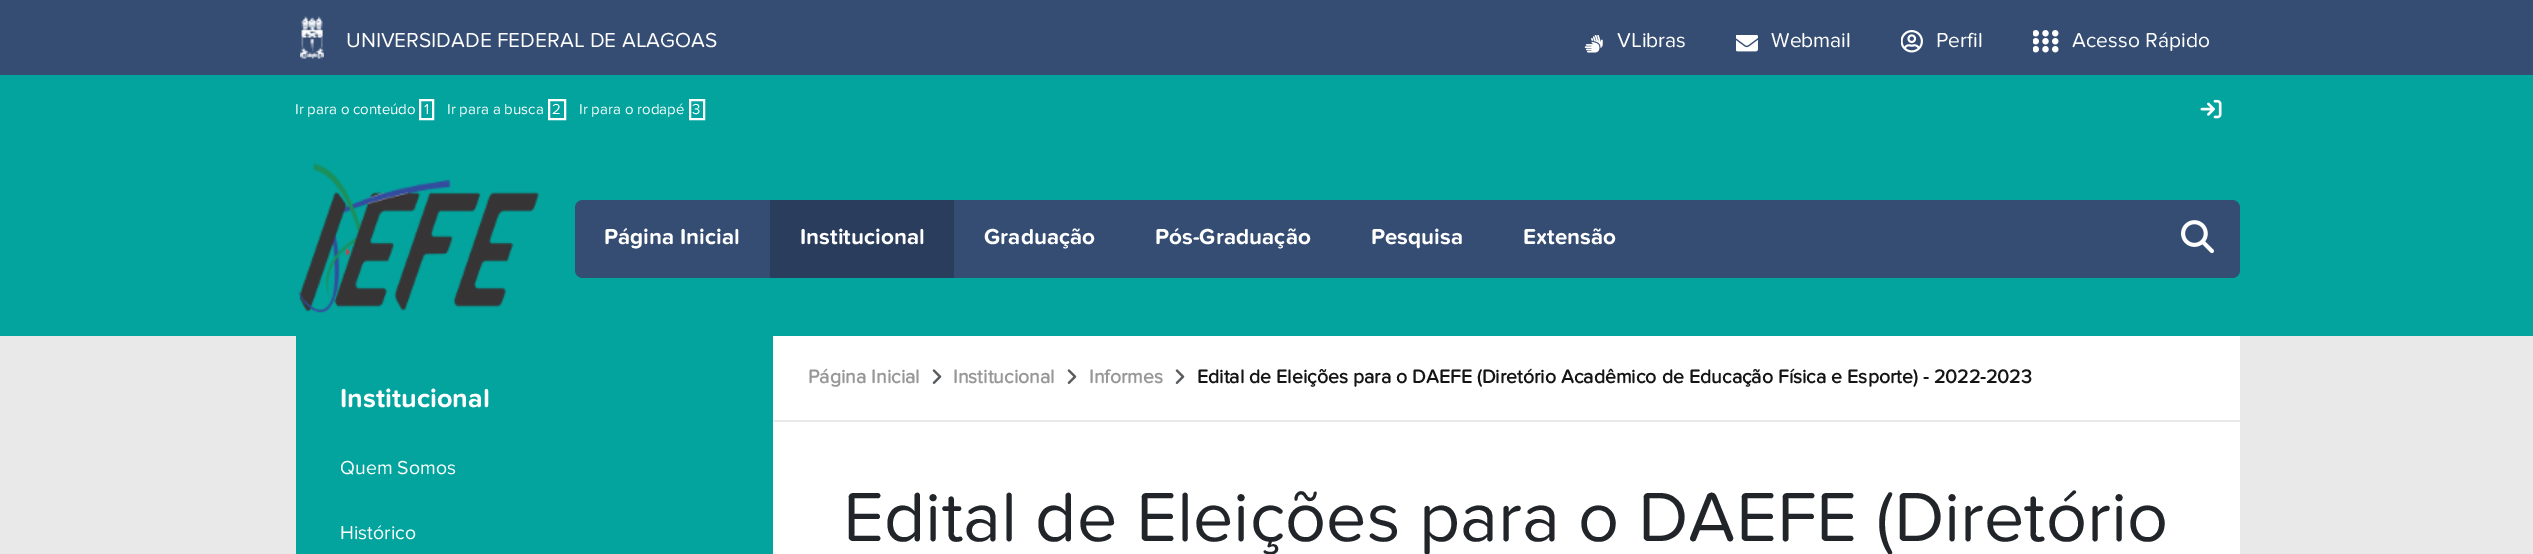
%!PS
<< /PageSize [2533 554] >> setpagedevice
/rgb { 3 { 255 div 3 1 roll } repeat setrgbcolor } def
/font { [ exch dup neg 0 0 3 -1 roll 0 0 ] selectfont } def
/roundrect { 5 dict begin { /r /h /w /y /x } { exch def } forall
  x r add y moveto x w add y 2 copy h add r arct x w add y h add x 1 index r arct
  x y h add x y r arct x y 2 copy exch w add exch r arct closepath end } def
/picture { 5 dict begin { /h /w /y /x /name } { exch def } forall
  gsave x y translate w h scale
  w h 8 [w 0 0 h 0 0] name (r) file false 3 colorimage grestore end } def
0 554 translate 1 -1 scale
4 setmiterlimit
233 233 233 rgb
0 0 2533 554 rectfill
53 77 115 rgb
0 0 2533 75 rectfill
(img/1.rgb) 300 16 24 43 picture
(img/2.rgb) 1584 35 19 18 picture
(img/3.rgb) 1736 35 22 17 picture
(img/4.rgb) 1901 30 22 23 picture
(img/5.rgb) 2033 30 26 23 picture
2 164 157 rgb
0 75 2533 261 rectfill
255 255 255 rgb
2 setlinewidth
420 100 13 19 rectstroke
549 100 16 19 rectstroke
690 100 14 19 rectstroke
(img/6.rgb) 2200 99 22 20 picture
(img/7.rgb) 297 163 242 150 picture
53 77 115 rgb
575 200 1665 78 8 roundrect fill
42 61 92 rgb
770 200 184 78 rectfill
(img/8.rgb) 2181 220 33 34 picture
[
  [773 336 1467 218 255 255 255]
  [296 336 477 218 2 164 157]
  [773 420 1467 2 233 233 233]
] { aload pop rgb rectfill } forall
(img/9.rgb) 932 369 10 15 picture
(img/9.rgb) 1067 369 10 15 picture
(img/9.rgb) 1175 369 10 15 picture
/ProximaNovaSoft-Regular 21 font
255 255 255 rgb
[
  [(UNIVERSIDADE FEDERAL DE ALAGOAS) 346 47]
  [(VLibras) 1617 47]
  [(Webmail) 1771 47]
  [(Perfil) 1936 47]
  [(Acesso Rápido) 2072 47]
] { aload pop moveto show } forall
/ProximaNovaSoft-Regular 15 font
[
  [(Ir para o conteúdo) 295 114]
  [(1) 424 114]
  [(Ir para a busca) 447 114]
  [(2) 552 114]
  [(Ir para o rodapé) 579 114]
  [(3) 692 114]
] { aload pop moveto show } forall
/ProximaNovaSoft-Bold 22.5 font
[
  [(Página Inicial) 604 244]
  [(Institucional) 800 244]
  [(Graduação) 984 244]
  [(Pós-Graduação) 1155 244]
  [(Pesquisa) 1371 244]
  [(Extensão) 1523 244]
] { aload pop moveto show } forall
/ProximaNovaSoft-Bold 27 font
340 407 moveto (Institucional) show
/ProximaNovaSoft-Regular 19.5 font
340 474 moveto (Quem Somos) show
340 539 moveto (Histórico) show
/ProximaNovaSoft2-Bold 19.5 font
152 152 152 rgb
[
  [(Página Inicial) 808 383]
  [(Institucional) 953 383]
  [(Informes) 1089 383]
] { aload pop moveto show } forall
21 21 21 rgb
1197 383 moveto (Edital de Eleições para o DAEFE \(Diretório Acadêmico de Educação Física e Esporte\) - 2022-2023) show
/ProximaNovaSoft-Regular 72 font
33 37 41 rgb
843 541 moveto (Edital de Eleições para o DAEFE \(Diretório) show
showpage
